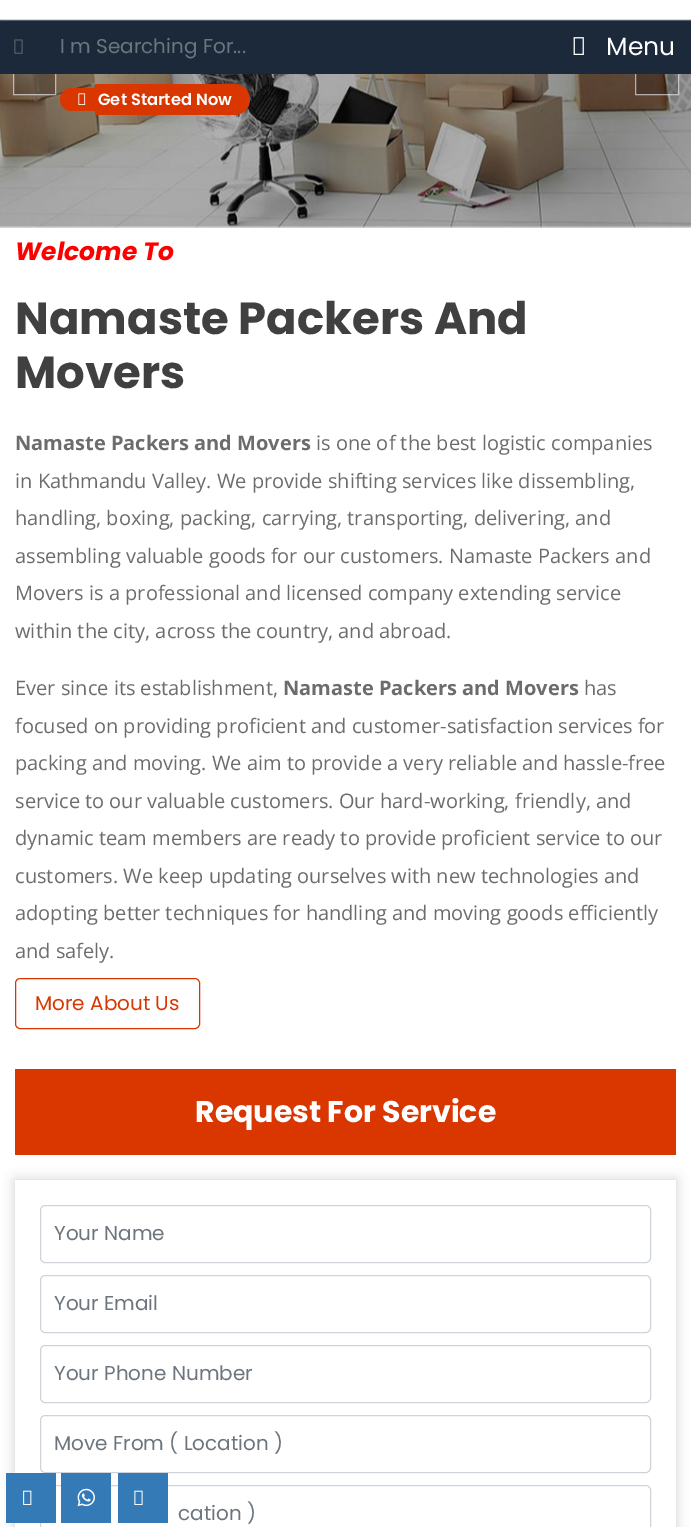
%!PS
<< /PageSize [691 1527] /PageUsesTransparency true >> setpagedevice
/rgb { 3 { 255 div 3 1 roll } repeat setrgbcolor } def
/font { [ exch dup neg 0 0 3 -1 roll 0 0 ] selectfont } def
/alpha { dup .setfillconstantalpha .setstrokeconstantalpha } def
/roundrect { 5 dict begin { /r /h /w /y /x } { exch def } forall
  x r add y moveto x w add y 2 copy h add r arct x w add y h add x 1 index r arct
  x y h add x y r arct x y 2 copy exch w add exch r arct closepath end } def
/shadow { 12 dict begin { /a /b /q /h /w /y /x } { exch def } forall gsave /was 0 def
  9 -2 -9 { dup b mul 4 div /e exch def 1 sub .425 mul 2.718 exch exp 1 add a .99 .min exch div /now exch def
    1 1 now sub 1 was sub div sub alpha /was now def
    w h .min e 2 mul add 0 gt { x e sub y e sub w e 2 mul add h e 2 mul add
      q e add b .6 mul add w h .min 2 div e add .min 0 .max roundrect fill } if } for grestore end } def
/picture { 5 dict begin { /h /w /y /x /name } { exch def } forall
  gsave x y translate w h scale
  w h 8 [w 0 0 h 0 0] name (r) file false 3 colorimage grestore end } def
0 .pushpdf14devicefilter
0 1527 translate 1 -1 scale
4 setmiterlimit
255 255 255 rgb
0 0 691 1527 rectfill
(img/3.rgb) 0 74 691 154 picture
0.2 alpha
0 0 0 rgb
13 74 43 21 rectfill
0.6 alpha
255 255 255 rgb
13.5 58.5 42 36 rectstroke
0.2 alpha
0 0 0 rgb
635 74 44 21 rectfill
0.6 alpha
255 255 255 rgb
635.5 58.5 43 36 rectstroke
1 alpha
27 41 58 rgb
0 19 691 55 rectfill
245 245 245 rgb
0 -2 691 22 0 0.5 1 shadow
255 255 255 rgb
0 0 691 19 rectfill
(img/1.rgb) 14 39 9 15 picture
(img/2.rgb) 573 37 11 18 picture
217 54 0 rgb
71.5 88 moveto 95 88 lineto 95 111 lineto 71.5 111 lineto 65 111 60 106 60 99.5 curveto 60 93 65 88 71.5 88 curveto closepath fill
95 84 moveto 234.5 84 lineto 243 84 250 91 250 99.5 curveto 250 108 243 115 234.5 115 curveto 95 115 lineto closepath fill
(img/4.rgb) 78 93 8 12 picture
15.5 978.5 184 50 4.5 roundrect stroke
15 1069 661 86 rectfill
gsave
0 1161 moveto 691 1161 lineto 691 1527 lineto 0 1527 lineto closepath 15 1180 moveto 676 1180 lineto 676 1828 lineto 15 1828 lineto closepath eoclip newpath
204 204 204 rgb
15 1180 661 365 0 6 1 shadow
grestore
206 212 218 rgb
40.5 1205.5 610 57 4.5 roundrect stroke
40.5 1275.5 610 57 4.5 roundrect stroke
40.5 1345.5 610 57 4.5 roundrect stroke
40.5 1415.5 610 57 4.5 roundrect stroke
40.5 1485.5 610 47 4.5 roundrect stroke
51 122 183 rgb
6 1473 50 50 rectfill
(img/5.rgb) 23 1490 9 15 picture
61 1473 50 50 rectfill
(img/6.rgb) 77 1488 18 19 picture
118 1473 50 50 rectfill
(img/7.rgb) 134 1490 9 15 picture
/Poppins-Regular 20 font
108 117 125 rgb
60 53 moveto (I m Searching For...) show
/Poppins-Regular 25 font
255 255 255 rgb
606 55 moveto (Menu) show
/Poppins-SemiBold 16.25 font
98 105 moveto (Get Started Now) show
/Poppins-BoldItalic 25 font
255 0 0 rgb
15 260 moveto (Welcome To) show
/Poppins-Bold 45 font
64 64 64 rgb
15 334 moveto (Namaste Packers And) show
15 388 moveto (Movers) show
/OpenSans-Bold 20 font
108 108 108 rgb
15 450 moveto (Namaste Packers and Movers) show
/OpenSans-Regular 20 font
[
  [(is one of the best logistic companies) 316 450]
  [(in Kathmandu Valley. We provide shifting services like dissembling,) 15 488]
  [(handling, boxing, packing, carrying, transporting, delivering, and) 15 525]
  [(assembling valuable goods for our customers. Namaste Packers and) 15 563]
  [(Movers is a professional and licensed company extending service) 15 600]
  [(within the city, across the country, and abroad.) 15 638]
  [(Ever since its establishment,) 15 695]
] { aload pop moveto show } forall
/OpenSans-Bold 20 font
283 695 moveto (Namaste Packers and Movers) show
/OpenSans-Regular 20 font
[
  [(has) 584 695]
  [(focused on providing proficient and customer-satisfaction services for) 15 733]
  [(packing and moving. We aim to provide a very reliable and hassle-free) 15 770]
  [(service to our valuable customers. Our hard-working, friendly, and) 15 808]
  [(dynamic team members are ready to provide proficient service to our) 15 845]
  [(customers. We keep updating ourselves with new technologies and) 15 883]
  [(adopting better techniques for handling and moving goods efficiently) 15 920]
  [(and safely.) 15 958]
] { aload pop moveto show } forall
/Poppins-Regular 20 font
217 54 0 rgb
35 1010 moveto (More About Us) show
/Poppins-Bold 30 font
255 255 255 rgb
195 1122 moveto (Request For Service) show
/Poppins-Regular 20 font
108 117 125 rgb
[
  [(Your Name) 54 1240]
  [(Your Email) 54 1310]
  [(Your Phone Number) 54 1380]
  [(Move From \( Location \)) 54 1450]
  [(cation \)) 178 1520]
] { aload pop moveto show } forall
.poppdf14devicefilter showpage
